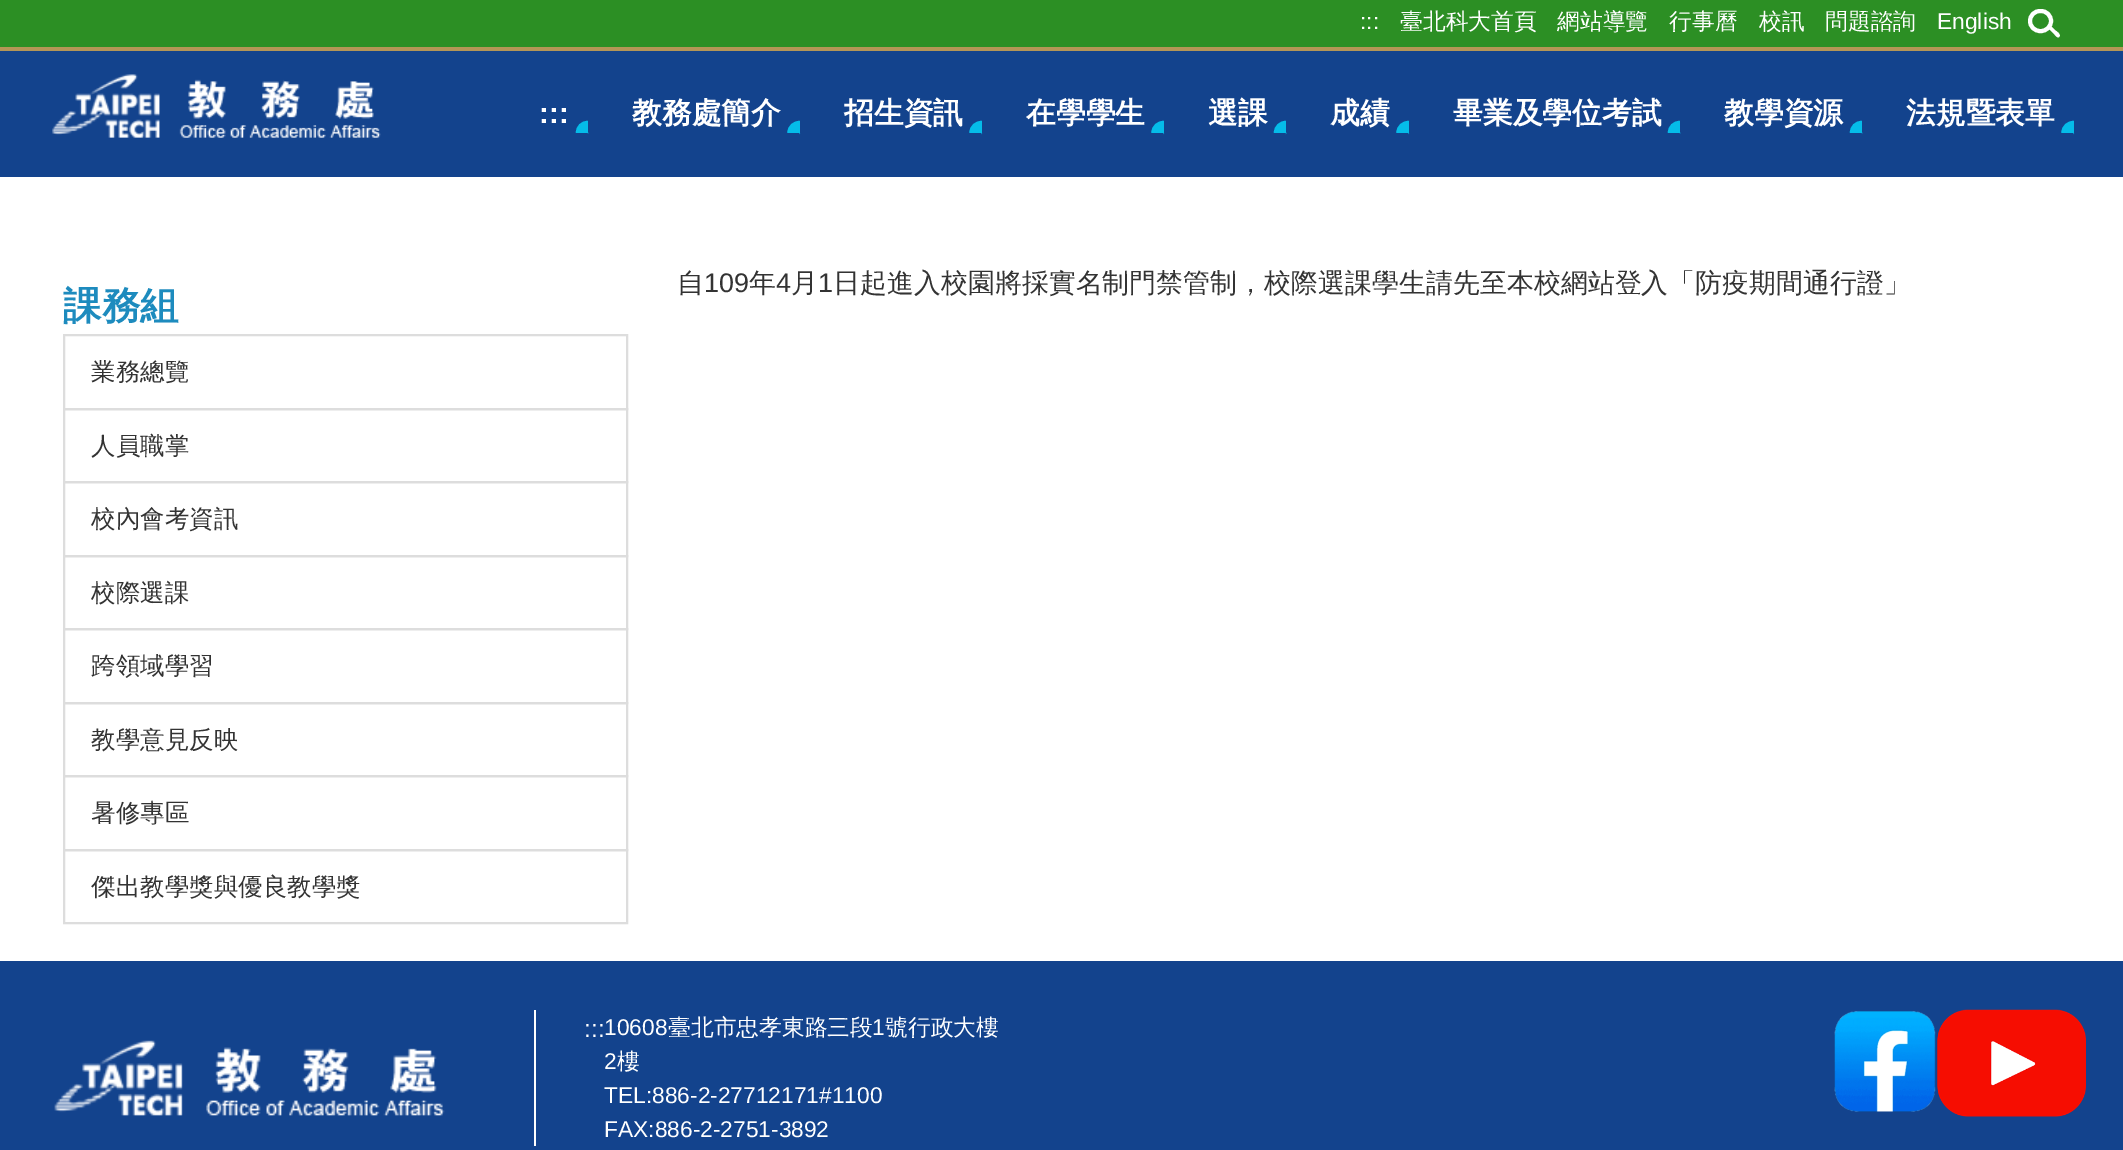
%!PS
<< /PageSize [2123 1150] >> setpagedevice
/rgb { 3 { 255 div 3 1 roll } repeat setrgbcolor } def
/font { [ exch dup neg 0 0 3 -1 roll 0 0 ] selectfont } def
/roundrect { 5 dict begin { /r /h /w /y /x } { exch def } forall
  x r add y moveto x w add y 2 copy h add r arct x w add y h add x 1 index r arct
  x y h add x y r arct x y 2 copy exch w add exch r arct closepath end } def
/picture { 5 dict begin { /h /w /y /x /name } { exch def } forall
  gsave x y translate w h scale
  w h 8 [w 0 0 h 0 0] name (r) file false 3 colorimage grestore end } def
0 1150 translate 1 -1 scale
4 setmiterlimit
255 255 255 rgb
0 0 2123 1150 rectfill
[
  [0 0 2123 47 44 143 36]
  [0 51 2123 126 19 67 141]
  [0 47 2123 4 180 150 86]
] { aload pop rgb rectfill } forall
5 188 233 rgb
12.3 setlinewidth
582 133 moveto 582 129.5 584.5 127 588 127 curveto stroke
793.5 133 moveto 793.5 129.5 796.5 127 800 127 curveto stroke
975.5 133 moveto 975.5 129.5 978.5 127 982 127 curveto stroke
1157.5 133 moveto 1157.5 129.5 1160.5 127 1164 127 curveto stroke
1280 133 moveto 1280 129.5 1283 127 1286 127 curveto stroke
1402.5 133 moveto 1402.5 129.5 1405.5 127 1409 127 curveto stroke
1674 133 moveto 1674 129.5 1676.5 127 1680 127 curveto stroke
1856 133 moveto 1856 129.5 1858.5 127 1862 127 curveto stroke
2067.5 133 moveto 2067.5 129.5 2070.5 127 2074 127 curveto stroke
255 255 255 rgb
4 setlinewidth
2030 11 21 20 10 roundrect stroke
2052 27 moveto 2055.5 30.5 lineto 2057 31.5 2061 34.5 2059.5 36.5 curveto 2058 39 2055.5 35.5 2054.5 34.5 curveto 2049 29 lineto 2048.5 27 2050.5 25.5 2052 27 curveto closepath fill
(img/1.rgb) 52 74 329 64 picture
221 221 221 rgb
2 setlinewidth
64 335 563 74 rectstroke
64 409 563 73 rectstroke
64 482 563 74 rectstroke
64 556 563 73 rectstroke
64 629 563 74 rectstroke
64 703 563 73 rectstroke
64 776 563 74 rectstroke
64 850 563 73 rectstroke
19 67 141 rgb
0 961 2123 189 rectfill
255 255 255 rgb
534 1010 2 136 rectfill
(img/2.rgb) 54 1040 391 76 picture
(img/3.rgb) 1834 1011 102 101 picture
(img/4.rgb) 1937 1009 149 108 picture
/LiberationSans-Regular 22.75 font
1360 29 moveto (:::) show
/WenQuanYiZenHei-Medium 22.75 font
[
  [(臺北科大首頁) 1400 29]
  [(網站導覽) 1557 29]
  [(行事曆) 1669 29]
  [(校訊) 1759 29]
  [(問題諮詢) 1825 29]
] { aload pop moveto show } forall
/LiberationSans-Regular 22.75 font
1937 29 moveto (English) show
/LiberationSans-Bold 29.75 font
539 123 moveto (:::) show
/WenQuanYiZenHei-Bold 29.75 font
[
  [(教務處簡介) 632 123]
  [(招生資訊) 844 123]
  [(在學學生) 1026 123]
  [(選課) 1208 123]
  [(成績) 1330 123]
  [(畢業及學位考試) 1453 123]
  [(教學資源) 1724 123]
  [(法規暨表單) 1906 123]
] { aload pop moveto show } forall
/WenQuanYiZenHei-Medium 26.95 font
51 51 51 rgb
677 292 moveto (自) show
/LiberationSans-Regular 26.95 font
704 292 moveto (109) show
/WenQuanYiZenHei-Medium 26.95 font
749 292 moveto (年) show
/LiberationSans-Regular 26.95 font
776 292 moveto (4) show
/WenQuanYiZenHei-Medium 26.95 font
791 292 moveto (月) show
/LiberationSans-Regular 26.95 font
818 292 moveto (1) show
/WenQuanYiZenHei-Medium 26.95 font
833 292 moveto (日起進入校園將採實名制門禁管制，校際選課學生請先至本校網站登入「防疫期間通行證」) show
/WenQuanYiZenHei-Bold 38.5 font
29 139 190 rgb
63 319 moveto (課務組) show
/WenQuanYiZenHei-Medium 24.5 font
51 51 51 rgb
[
  [(業務總覽) 91 380]
  [(人員職掌) 91 454]
  [(校內會考資訊) 91 527]
  [(校際選課) 91 601]
  [(跨領域學習) 91 674]
  [(教學意見反映) 91 748]
  [(暑修專區) 91 821]
  [(傑出教學獎與優良教學獎) 91 895]
] { aload pop moveto show } forall
/LiberationSans-Regular 24.5 font
255 255 255 rgb
584 1037 moveto (:::) show
/LiberationSans-Regular 22.75 font
604 1035 moveto (10608) show
/WenQuanYiZenHei-Medium 22.75 font
668 1035 moveto (臺北市忠孝東路三段) show
/LiberationSans-Regular 22.75 font
872 1035 moveto (1) show
/WenQuanYiZenHei-Medium 22.75 font
885 1035 moveto (號行政大樓) show
/LiberationSans-Regular 22.75 font
604 1069 moveto (2) show
/WenQuanYiZenHei-Medium 22.75 font
617 1069 moveto (樓) show
/LiberationSans-Regular 22.75 font
604 1103 moveto (TEL:886-2-27712171#1100) show
604 1137 moveto (FAX:886-2-2751-3892) show
showpage
